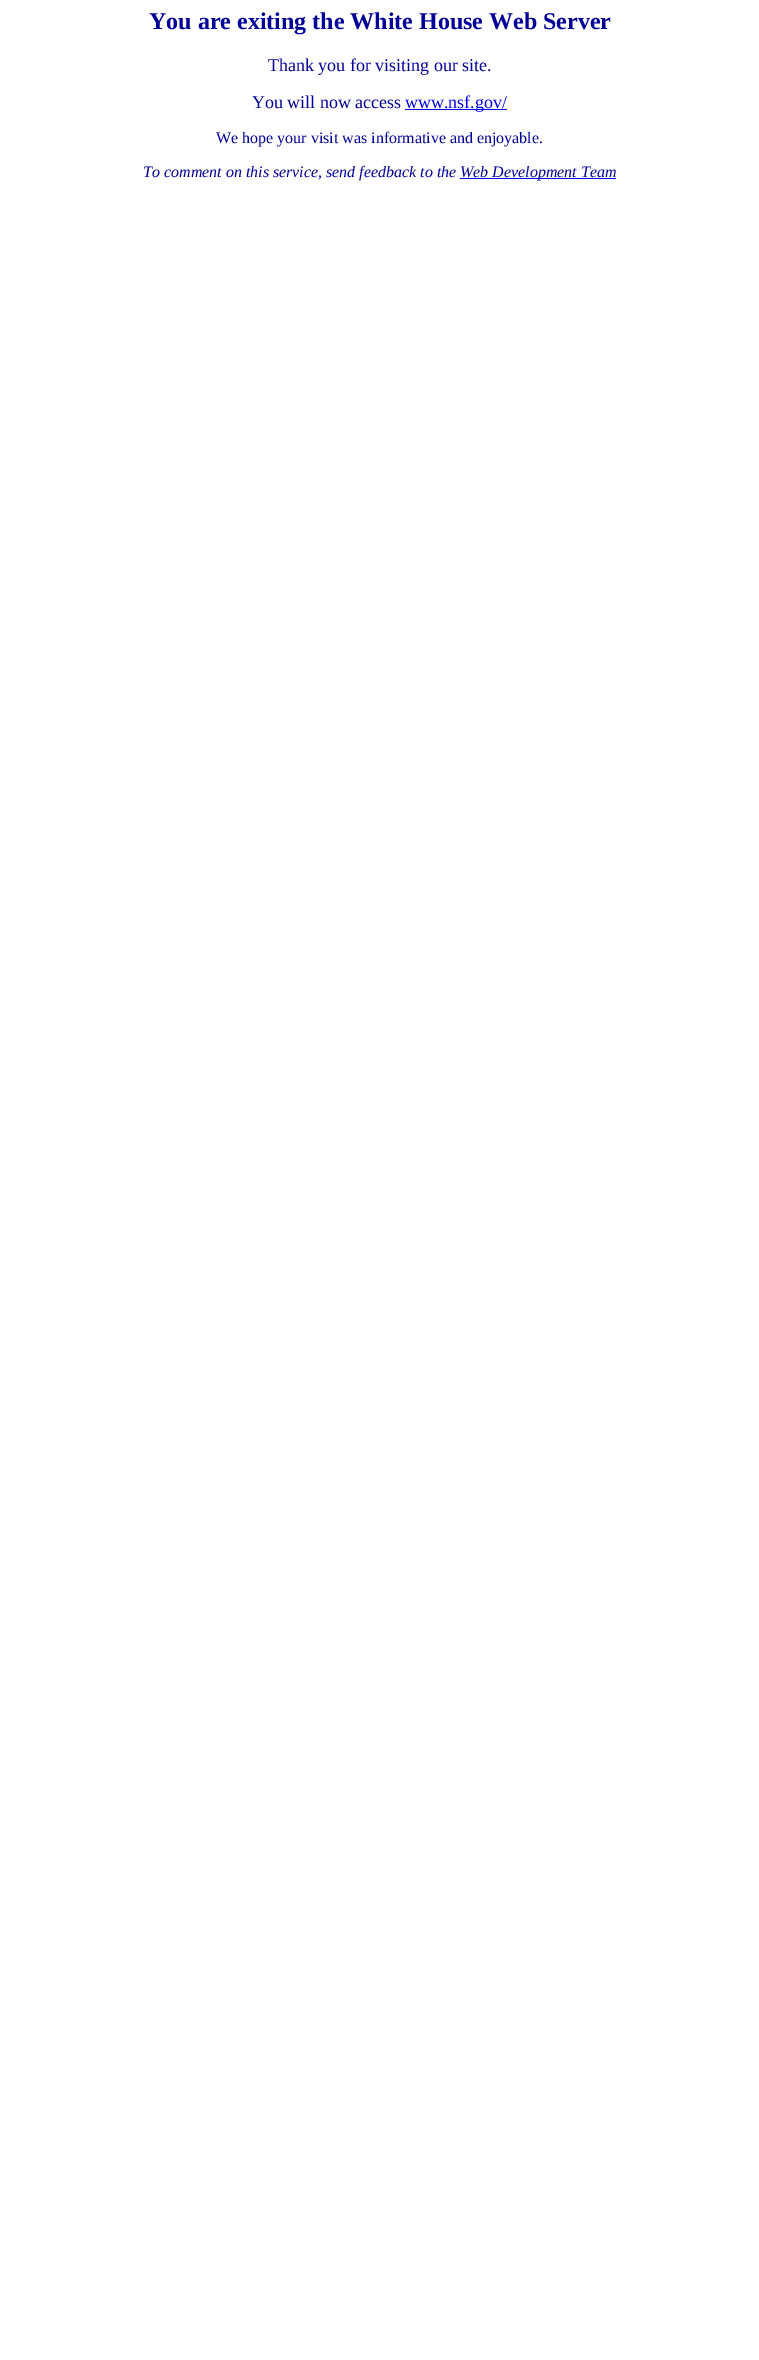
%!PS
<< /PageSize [759 2360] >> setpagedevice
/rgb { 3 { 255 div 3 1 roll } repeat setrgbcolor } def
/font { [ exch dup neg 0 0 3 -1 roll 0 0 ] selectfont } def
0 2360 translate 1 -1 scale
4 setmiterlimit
255 255 255 rgb
0 0 759 2360 rectfill
0 0 238 rgb
405 109 102 1 rectfill
460 178 156 1 rectfill
/LiberationSerif-Bold 24 font
0 0 153 rgb
149 29 moveto (You are exiting the White House Web Server) show
/LiberationSerif-Regular 18 font
268 71 moveto (Thank you for visiting our site.) show
252 108 moveto (You will now access) show
0 0 238 rgb
405 108 moveto (www.nsf.gov/) show
/LiberationSerif-Regular 16 font
0 0 153 rgb
216 143 moveto (We hope your visit was informative and enjoyable.) show
/LiberationSerif-Italic 16 font
143 177 moveto (To comment on this service, send feedback to the) show
460 177 moveto (Web Development Team) show
showpage
